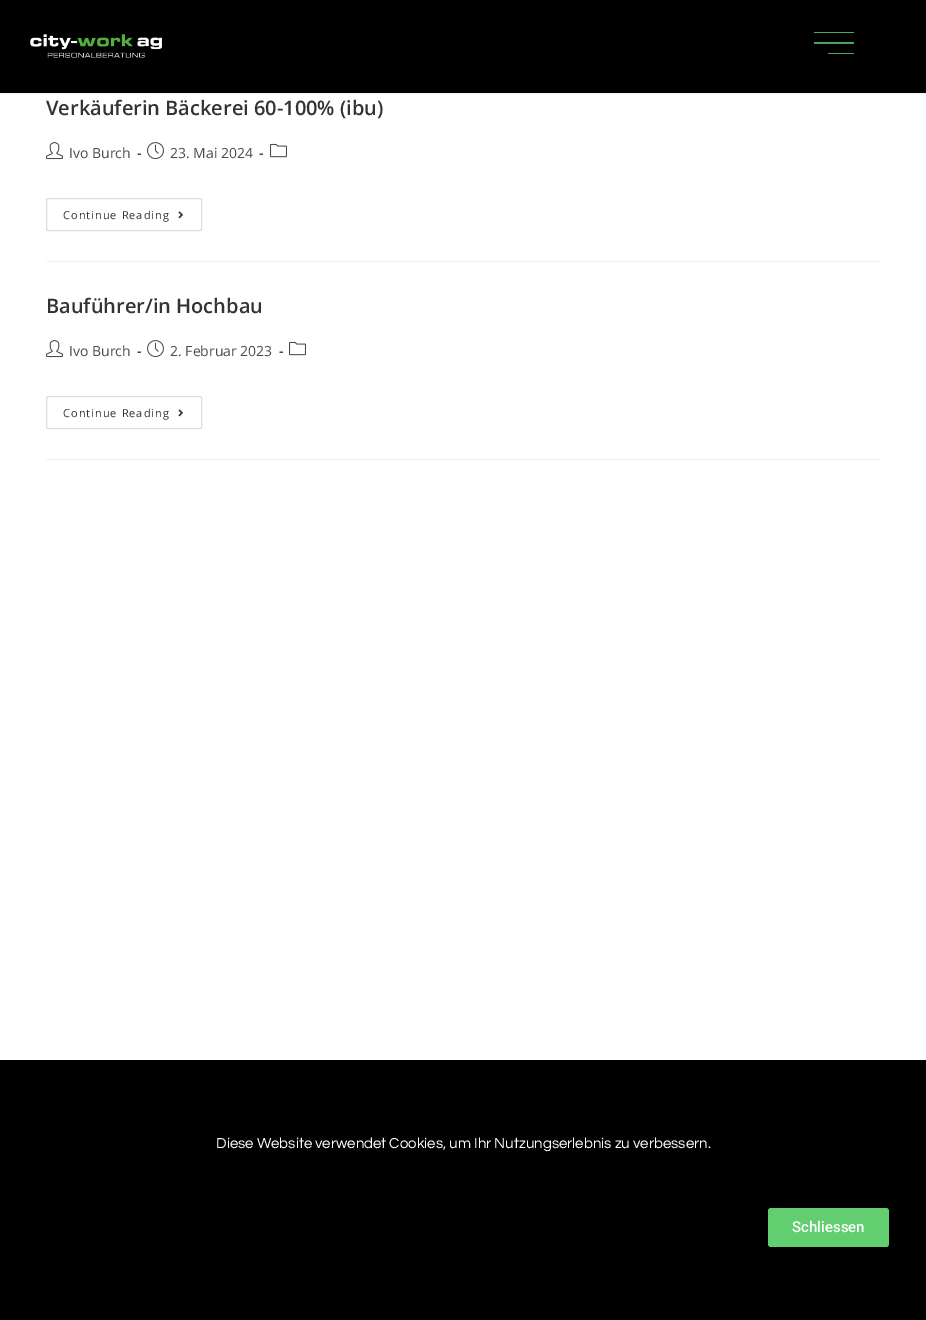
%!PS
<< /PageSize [926 1320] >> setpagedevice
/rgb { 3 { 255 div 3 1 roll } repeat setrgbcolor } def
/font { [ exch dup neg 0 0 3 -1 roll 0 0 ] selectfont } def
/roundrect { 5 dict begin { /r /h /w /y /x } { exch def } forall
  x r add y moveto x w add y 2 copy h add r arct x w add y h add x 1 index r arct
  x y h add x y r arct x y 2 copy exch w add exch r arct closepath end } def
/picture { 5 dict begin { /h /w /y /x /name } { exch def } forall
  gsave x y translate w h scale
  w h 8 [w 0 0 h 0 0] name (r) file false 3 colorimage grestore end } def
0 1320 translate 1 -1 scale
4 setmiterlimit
255 255 255 rgb
0 0 926 1320 rectfill
241 241 241 rgb
0 93 926 1 rectfill
0 0 0 rgb
0 0 926 93 rectfill
(img/1.rgb) 30 34 132 24 picture
[
  [814 42 40 2 78 165 90]
  [814 32 40 1 78 165 90]
  [828 53 26 1 78 165 90]
  [46 261 834 1 241 241 241]
] { aload pop rgb rectfill } forall
(img/2.rgb) 46 142 17 18 picture
(img/3.rgb) 147 142 17 18 picture
(img/4.rgb) 270 143 17 15 picture
221 221 221 rgb
46.5 198.5 155 32 1.5 roundrect stroke
(img/5.rgb) 178 211 5 8 picture
241 241 241 rgb
46 459 834 1 rectfill
(img/2.rgb) 46 340 17 18 picture
(img/3.rgb) 147 340 17 18 picture
(img/4.rgb) 289 341 17 15 picture
221 221 221 rgb
46.5 396.5 155 32 1.5 roundrect stroke
(img/5.rgb) 178 409 5 8 picture
0 0 0 rgb
0 1060 926 260 rectfill
97 206 112 rgb
768 1208 121 39 3 roundrect fill
/OpenSans-SemiBold 20 font
51 51 51 rgb
46 115 moveto (Verkäuferin Bäckerei 60-100% \(ibu\)) show
/OpenSans-Regular 14 font
74 74 74 rgb
69 158 moveto (Ivo Burch) show
/OpenSans-Bold 14 font
137 158 moveto (-) show
/OpenSans-Regular 14 font
170 158 moveto (23. Mai 2024) show
/OpenSans-Bold 14 font
259 158 moveto (-) show
/OpenSans-Regular 11 font
51 51 51 rgb
63 219 moveto 1 0 (Continue Reading) ashow
/OpenSans-SemiBold 20 font
46 313 moveto (Bauführer/in Hochbau) show
/OpenSans-Regular 14 font
74 74 74 rgb
69 356 moveto (Ivo Burch) show
/OpenSans-Bold 14 font
137 356 moveto (-) show
/OpenSans-Regular 14 font
170 356 moveto (2. Februar 2023) show
/OpenSans-Bold 14 font
279 356 moveto (-) show
/OpenSans-Regular 11 font
51 51 51 rgb
63 417 moveto 1 0 (Continue Reading) ashow
/Questrial-Regular 15 font
255 255 255 rgb
216 1148 moveto (Diese Website verwendet Cookies, um Ihr Nutzungserlebnis zu verbessern.) show
/Roboto-Medium 15 font
792 1232 moveto (Schliessen) show
showpage
